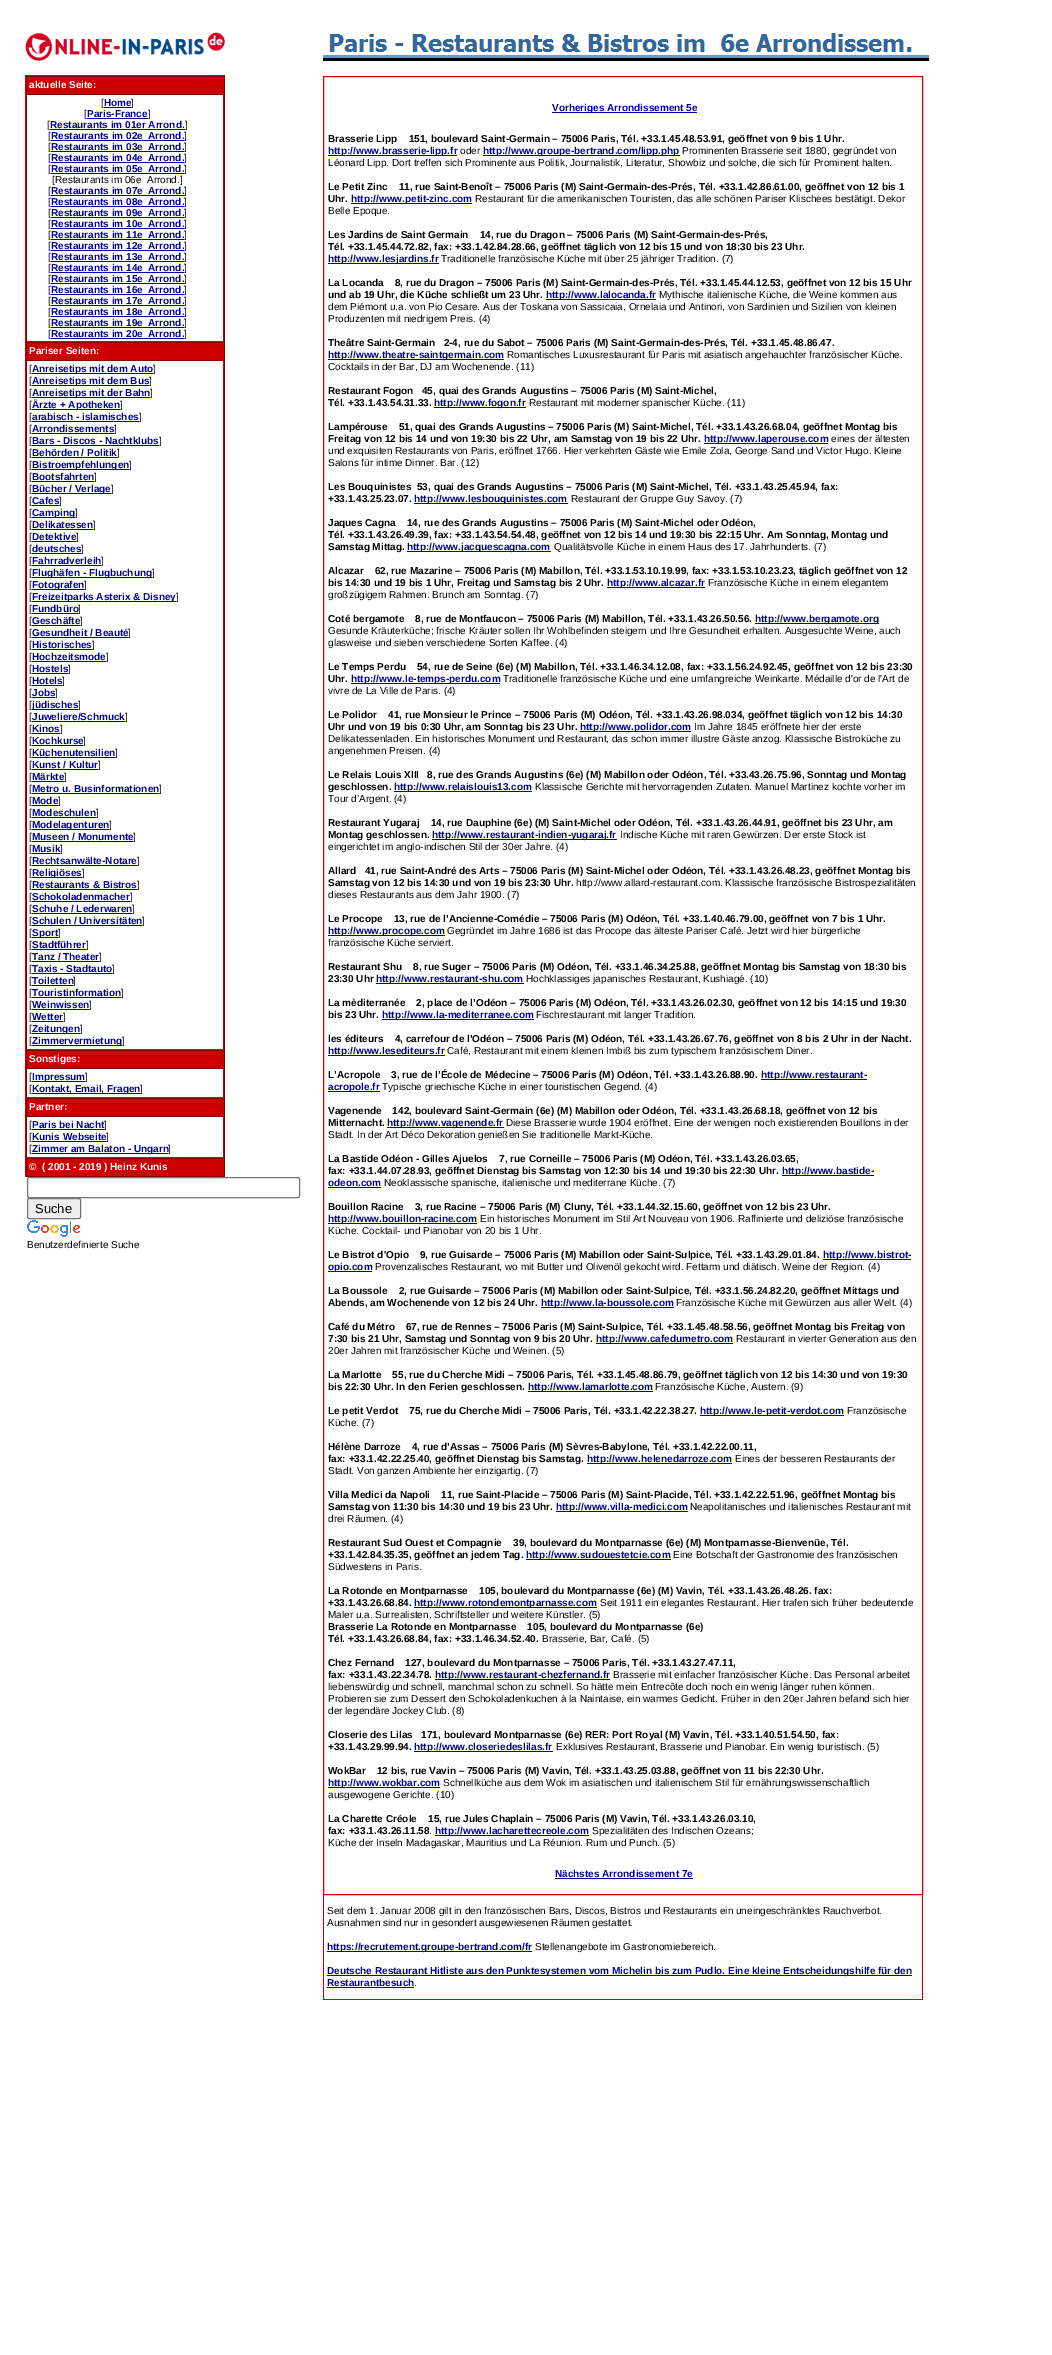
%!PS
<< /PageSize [1052 2355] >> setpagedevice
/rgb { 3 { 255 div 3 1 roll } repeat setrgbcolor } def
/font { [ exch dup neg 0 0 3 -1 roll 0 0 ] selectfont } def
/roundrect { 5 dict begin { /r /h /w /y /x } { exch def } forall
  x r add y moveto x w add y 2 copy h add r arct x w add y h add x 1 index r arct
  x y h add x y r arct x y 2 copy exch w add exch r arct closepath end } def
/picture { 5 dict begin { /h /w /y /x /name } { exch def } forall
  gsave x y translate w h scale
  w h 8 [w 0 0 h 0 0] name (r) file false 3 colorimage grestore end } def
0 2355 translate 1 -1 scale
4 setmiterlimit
255 255 255 rgb
0 0 1052 2355 rectfill
(img/1.rgb) 25 32 200 29 picture
[
  [25 75 200 1 204 0 0]
  [224 75 1 1102 136 0 0]
  [25 1176 200 1 136 0 0]
  [25 75 1 1102 204 0 0]
  [27 77 196 17 204 0 0]
  [26 76 198 1 136 0 0]
  [223 76 1 18 204 0 0]
  [26 76 1 18 136 0 0]
  [26 94 198 1 136 0 0]
  [223 94 1 248 204 0 0]
  [26 341 198 1 204 0 0]
  [26 94 1 248 136 0 0]
  [104 107 27 1 0 0 153]
  [51 140 133 1 0 0 153]
  [51 151 133 1 0 0 153]
  [51 162 133 1 0 0 153]
  [51 173 133 1 0 0 153]
  [51 195 133 1 0 0 153]
  [51 206 133 1 0 0 153]
  [51 217 133 1 0 0 153]
  [51 228 133 1 0 0 153]
  [51 239 133 1 0 0 153]
  [51 250 133 1 0 0 153]
  [51 261 133 1 0 0 153]
  [51 272 133 1 0 0 153]
  [51 283 133 1 0 0 153]
  [51 294 133 1 0 0 153]
  [51 305 133 1 0 0 153]
  [51 316 133 1 0 0 153]
  [51 327 133 1 0 0 153]
  [51 338 133 1 0 0 153]
  [27 343 196 17 204 0 0]
  [26 342 198 1 136 0 0]
  [223 342 1 18 204 0 0]
  [26 342 1 18 136 0 0]
  [26 360 198 1 136 0 0]
  [223 360 1 690 204 0 0]
  [26 1049 198 1 204 0 0]
  [26 360 1 690 136 0 0]
  [32 373 121 1 0 0 153]
  [32 385 117 1 0 0 153]
  [32 397 118 1 0 0 153]
  [32 409 88 1 0 0 153]
  [32 421 107 1 0 0 153]
  [32 433 82 1 0 0 153]
  [32 445 127 1 0 0 153]
  [32 457 85 1 0 0 153]
  [32 469 97 1 0 0 153]
  [32 481 62 1 0 0 153]
  [32 493 79 1 0 0 153]
  [32 505 27 1 0 0 153]
  [32 517 43 1 0 0 153]
  [32 529 61 1 0 0 153]
  [32 541 44 1 0 0 153]
  [32 553 49 1 0 0 153]
  [32 565 69 1 0 0 153]
  [32 577 120 1 0 0 153]
  [32 589 52 1 0 0 153]
  [32 601 144 1 0 0 153]
  [32 613 46 1 0 0 153]
  [32 625 48 1 0 0 153]
  [32 637 96 1 0 0 153]
  [32 649 60 1 0 0 153]
  [32 661 74 1 0 0 153]
  [32 673 36 1 0 0 153]
  [32 685 30 1 0 0 153]
  [32 697 23 1 0 0 153]
  [32 709 46 1 0 0 153]
  [32 721 93 1 0 0 153]
  [32 733 28 1 0 0 153]
  [32 745 51 1 0 0 153]
  [32 757 83 1 0 0 153]
  [32 769 66 1 0 0 153]
  [32 781 32 1 0 0 153]
  [32 793 127 1 0 0 153]
  [32 805 26 1 0 0 153]
  [32 817 64 1 0 0 153]
  [32 829 77 1 0 0 153]
  [32 841 101 1 0 0 153]
  [32 853 28 1 0 0 153]
  [32 865 105 1 0 0 153]
  [32 877 50 1 0 0 153]
  [32 889 105 1 0 0 153]
  [32 901 98 1 0 0 153]
  [32 913 100 1 0 0 153]
  [32 925 110 1 0 0 153]
  [32 937 26 1 0 0 153]
  [32 949 54 1 0 0 153]
  [32 961 67 1 0 0 153]
  [32 973 80 1 0 0 153]
  [32 985 41 1 0 0 153]
  [32 997 89 1 0 0 153]
  [32 1009 57 1 0 0 153]
  [32 1021 31 1 0 0 153]
  [32 1033 48 1 0 0 153]
  [32 1045 90 1 0 0 153]
  [27 1051 196 17 204 0 0]
  [26 1050 198 1 136 0 0]
  [223 1050 1 18 204 0 0]
  [26 1050 1 18 136 0 0]
  [26 1068 198 1 136 0 0]
  [223 1068 1 30 204 0 0]
  [26 1097 198 1 204 0 0]
  [26 1068 1 30 136 0 0]
  [32 1081 53 1 0 0 153]
  [32 1093 108 1 0 0 153]
  [27 1099 196 17 204 0 0]
  [26 1098 198 1 136 0 0]
  [223 1098 1 18 204 0 0]
  [26 1098 1 18 136 0 0]
  [26 1116 198 1 136 0 0]
  [223 1116 1 42 204 0 0]
  [26 1157 198 1 204 0 0]
  [26 1116 1 42 136 0 0]
  [32 1129 72 1 0 0 153]
  [32 1141 74 1 0 0 153]
  [32 1153 136 1 0 0 153]
  [27 1159 196 17 204 0 0]
  [26 1158 198 1 136 0 0]
  [223 1158 1 18 204 0 0]
  [26 1158 1 18 136 0 0]
] { aload pop rgb rectfill } forall
118 118 118 rgb
27.5 1177.5 272 20 1.5 roundrect stroke
239 239 239 rgb
27.5 1198.5 53 20 1.5 roundrect gsave fill grestore
118 118 118 rgb
stroke
(img/2.rgb) 27 1220 53 17 picture
(img/3.rgb) 323 33 606 28 picture
204 0 0 rgb
323.5 76.5 599 1818 rectstroke
[
  [552 112 145 1 0 0 153]
  [328 155 129 1 0 0 153]
  [483 155 197 1 0 0 153]
  [351 203 121 1 0 0 153]
  [328 263 111 1 0 0 153]
  [546 299 110 1 0 0 153]
  [328 359 176 1 0 0 153]
  [434 407 92 1 0 0 153]
  [704 443 124 1 0 0 153]
  [414 503 154 1 0 0 153]
  [407 551 144 1 0 0 153]
  [607 587 98 1 0 0 153]
  [755 623 124 1 0 0 153]
  [351 683 149 1 0 0 153]
  [580 731 111 1 0 0 153]
  [394 791 138 1 0 0 153]
  [432 839 185 1 0 0 153]
  [328 935 117 1 0 0 153]
  [376 983 148 1 0 0 153]
  [382 1019 152 1 0 0 153]
  [328 1055 117 1 0 0 153]
  [761 1079 106 1 0 0 153]
  [328 1091 52 1 0 0 153]
  [387 1127 117 1 0 0 153]
  [782 1175 92 1 0 0 153]
  [328 1187 53 1 0 0 153]
  [328 1223 149 1 0 0 153]
  [823 1259 88 1 0 0 153]
  [328 1271 44 1 0 0 153]
  [541 1307 133 1 0 0 153]
  [596 1343 137 1 0 0 153]
  [528 1391 125 1 0 0 153]
  [700 1415 144 1 0 0 153]
  [587 1463 145 1 0 0 153]
  [556 1511 132 1 0 0 153]
  [526 1559 145 1 0 0 153]
  [414 1607 183 1 0 0 153]
  [435 1679 175 1 0 0 153]
  [414 1751 139 1 0 0 153]
  [328 1787 112 1 0 0 153]
  [435 1835 154 1 0 0 153]
  [555 1878 138 1 0 0 153]
  [922 1895 1 105 204 0 0]
  [323 1999 600 1 204 0 0]
  [323 1895 1 105 204 0 0]
  [327 1951 205 1 0 0 153]
  [327 1975 585 1 0 0 153]
  [327 1987 87 1 0 0 153]
] { aload pop rgb rectfill } forall
/LiberationSans-Bold 10 font
255 255 255 rgb
29 88 moveto (aktuelle Seite:) show
/LiberationSans-Regular 10 font
0 0 0 rgb
101 106 moveto ([) show
/LiberationSans-Bold 10 font
0 0 153 rgb
104 106 moveto (Home) show
/LiberationSans-Regular 10 font
0 0 0 rgb
131 106 moveto (]) show
84 117 moveto ([) show
/LiberationSans-Bold 10 font
0 0 153 rgb
87 117 moveto (Paris-France) show
87 118 61 1 rectfill
/LiberationSans-Regular 10 font
0 0 0 rgb
148 117 moveto (]) show
47 128 moveto ([) show
/LiberationSans-Bold 10 font
0 0 153 rgb
50 128 moveto (Restaurants im 01er Arrond.) show
50 129 135 1 rectfill
/LiberationSans-Regular 10 font
0 0 0 rgb
185 128 moveto (]) show
48 139 moveto ([) show
/LiberationSans-Bold 10 font
0 0 153 rgb
51 139 moveto (Restaurants im 02e  Arrond.) show
/LiberationSans-Regular 10 font
0 0 0 rgb
184 139 moveto (]) show
48 150 moveto ([) show
/LiberationSans-Bold 10 font
0 0 153 rgb
51 150 moveto (Restaurants im 03e  Arrond.) show
/LiberationSans-Regular 10 font
0 0 0 rgb
184 150 moveto (]) show
48 161 moveto ([) show
/LiberationSans-Bold 10 font
0 0 153 rgb
51 161 moveto (Restaurants im 04e  Arrond.) show
/LiberationSans-Regular 10 font
0 0 0 rgb
184 161 moveto (]) show
48 172 moveto ([) show
/LiberationSans-Bold 10 font
0 0 153 rgb
51 172 moveto (Restaurants im 05e  Arrond.) show
/LiberationSans-Regular 10 font
0 0 0 rgb
[
  [(]) 184 172]
  [([Restaurants im 06e  Arrond.]) 52 183]
  [([) 48 194]
] { aload pop moveto show } forall
/LiberationSans-Bold 10 font
0 0 153 rgb
51 194 moveto (Restaurants im 07e  Arrond.) show
/LiberationSans-Regular 10 font
0 0 0 rgb
184 194 moveto (]) show
48 205 moveto ([) show
/LiberationSans-Bold 10 font
0 0 153 rgb
51 205 moveto (Restaurants im 08e  Arrond.) show
/LiberationSans-Regular 10 font
0 0 0 rgb
184 205 moveto (]) show
48 216 moveto ([) show
/LiberationSans-Bold 10 font
0 0 153 rgb
51 216 moveto (Restaurants im 09e  Arrond.) show
/LiberationSans-Regular 10 font
0 0 0 rgb
184 216 moveto (]) show
48 227 moveto ([) show
/LiberationSans-Bold 10 font
0 0 153 rgb
51 227 moveto (Restaurants im 10e  Arrond.) show
/LiberationSans-Regular 10 font
0 0 0 rgb
184 227 moveto (]) show
48 238 moveto ([) show
/LiberationSans-Bold 10 font
0 0 153 rgb
51 238 moveto (Restaurants im 11e  Arrond.) show
/LiberationSans-Regular 10 font
0 0 0 rgb
184 238 moveto (]) show
48 249 moveto ([) show
/LiberationSans-Bold 10 font
0 0 153 rgb
51 249 moveto (Restaurants im 12e  Arrond.) show
/LiberationSans-Regular 10 font
0 0 0 rgb
184 249 moveto (]) show
48 260 moveto ([) show
/LiberationSans-Bold 10 font
0 0 153 rgb
51 260 moveto (Restaurants im 13e  Arrond.) show
/LiberationSans-Regular 10 font
0 0 0 rgb
184 260 moveto (]) show
48 271 moveto ([) show
/LiberationSans-Bold 10 font
0 0 153 rgb
51 271 moveto (Restaurants im 14e  Arrond.) show
/LiberationSans-Regular 10 font
0 0 0 rgb
184 271 moveto (]) show
48 282 moveto ([) show
/LiberationSans-Bold 10 font
0 0 153 rgb
51 282 moveto (Restaurants im 15e  Arrond.) show
/LiberationSans-Regular 10 font
0 0 0 rgb
184 282 moveto (]) show
48 293 moveto ([) show
/LiberationSans-Bold 10 font
0 0 153 rgb
51 293 moveto (Restaurants im 16e  Arrond.) show
/LiberationSans-Regular 10 font
0 0 0 rgb
184 293 moveto (]) show
48 304 moveto ([) show
/LiberationSans-Bold 10 font
0 0 153 rgb
51 304 moveto (Restaurants im 17e  Arrond.) show
/LiberationSans-Regular 10 font
0 0 0 rgb
184 304 moveto (]) show
48 315 moveto ([) show
/LiberationSans-Bold 10 font
0 0 153 rgb
51 315 moveto (Restaurants im 18e  Arrond.) show
/LiberationSans-Regular 10 font
0 0 0 rgb
184 315 moveto (]) show
48 326 moveto ([) show
/LiberationSans-Bold 10 font
0 0 153 rgb
51 326 moveto (Restaurants im 19e  Arrond.) show
/LiberationSans-Regular 10 font
0 0 0 rgb
184 326 moveto (]) show
48 337 moveto ([) show
/LiberationSans-Bold 10 font
0 0 153 rgb
51 337 moveto (Restaurants im 20e  Arrond.) show
/LiberationSans-Regular 10 font
0 0 0 rgb
184 337 moveto (]) show
/LiberationSans-Bold 10 font
255 255 255 rgb
29 354 moveto (Pariser Seiten:) show
/LiberationSans-Regular 10 font
0 0 0 rgb
29 372 moveto ([) show
/LiberationSans-Bold 10 font
0 0 153 rgb
32 372 moveto (Anreisetips mit dem Auto) show
/LiberationSans-Regular 10 font
0 0 0 rgb
153 372 moveto (]) show
29 384 moveto ([) show
/LiberationSans-Bold 10 font
0 0 153 rgb
32 384 moveto (Anreisetips mit dem Bus) show
/LiberationSans-Regular 10 font
0 0 0 rgb
149 384 moveto (]) show
29 396 moveto ([) show
/LiberationSans-Bold 10 font
0 0 153 rgb
32 396 moveto (Anreisetips mit der Bahn) show
/LiberationSans-Regular 10 font
0 0 0 rgb
150 396 moveto (]) show
29 408 moveto ([) show
/LiberationSans-Bold 10 font
0 0 153 rgb
32 408 moveto (Ärzte + Apotheken) show
/LiberationSans-Regular 10 font
0 0 0 rgb
120 408 moveto (]) show
29 420 moveto ([) show
/LiberationSans-Bold 10 font
0 0 153 rgb
32 420 moveto (arabisch - islamisches) show
/LiberationSans-Regular 10 font
0 0 0 rgb
139 420 moveto (]) show
29 432 moveto ([) show
/LiberationSans-Bold 10 font
0 0 153 rgb
32 432 moveto (Arrondissements) show
/LiberationSans-Regular 10 font
0 0 0 rgb
114 432 moveto (]) show
29 444 moveto ([) show
/LiberationSans-Bold 10 font
0 0 153 rgb
32 444 moveto (Bars - Discos - Nachtklubs) show
/LiberationSans-Regular 10 font
0 0 0 rgb
159 444 moveto (]) show
29 456 moveto ([) show
/LiberationSans-Bold 10 font
0 0 153 rgb
32 456 moveto (Behörden / Politik) show
/LiberationSans-Regular 10 font
0 0 0 rgb
117 456 moveto (]) show
29 468 moveto ([) show
/LiberationSans-Bold 10 font
0 0 153 rgb
32 468 moveto (Bistroempfehlungen) show
/LiberationSans-Regular 10 font
0 0 0 rgb
129 468 moveto (]) show
29 480 moveto ([) show
/LiberationSans-Bold 10 font
0 0 153 rgb
32 480 moveto (Bootsfahrten) show
/LiberationSans-Regular 10 font
0 0 0 rgb
94 480 moveto (]) show
29 492 moveto ([) show
/LiberationSans-Bold 10 font
0 0 153 rgb
32 492 moveto (Bücher / Verlage) show
/LiberationSans-Regular 10 font
0 0 0 rgb
111 492 moveto (]) show
29 504 moveto ([) show
/LiberationSans-Bold 10 font
0 0 153 rgb
32 504 moveto (Cafes) show
/LiberationSans-Regular 10 font
0 0 0 rgb
59 504 moveto (]) show
29 516 moveto ([) show
/LiberationSans-Bold 10 font
0 0 153 rgb
32 516 moveto (Camping) show
/LiberationSans-Regular 10 font
0 0 0 rgb
75 516 moveto (]) show
29 528 moveto ([) show
/LiberationSans-Bold 10 font
0 0 153 rgb
32 528 moveto (Delikatessen) show
/LiberationSans-Regular 10 font
0 0 0 rgb
93 528 moveto (]) show
29 540 moveto ([) show
/LiberationSans-Bold 10 font
0 0 153 rgb
32 540 moveto (Detektive) show
/LiberationSans-Regular 10 font
0 0 0 rgb
76 540 moveto (]) show
29 552 moveto ([) show
/LiberationSans-Bold 10 font
0 0 153 rgb
32 552 moveto (deutsches) show
/LiberationSans-Regular 10 font
0 0 0 rgb
81 552 moveto (]) show
29 564 moveto ([) show
/LiberationSans-Bold 10 font
0 0 153 rgb
32 564 moveto (Fahrradverleih) show
/LiberationSans-Regular 10 font
0 0 0 rgb
101 564 moveto (]) show
29 576 moveto ([) show
/LiberationSans-Bold 10 font
0 0 153 rgb
32 576 moveto (Flughäfen - Flugbuchung) show
/LiberationSans-Regular 10 font
0 0 0 rgb
152 576 moveto (]) show
29 588 moveto ([) show
/LiberationSans-Bold 10 font
0 0 153 rgb
32 588 moveto (Fotografen) show
/LiberationSans-Regular 10 font
0 0 0 rgb
84 588 moveto (]) show
29 600 moveto ([) show
/LiberationSans-Bold 10 font
0 0 153 rgb
32 600 moveto (Freizeitparks Asterix & Disney) show
/LiberationSans-Regular 10 font
0 0 0 rgb
176 600 moveto (]) show
29 612 moveto ([) show
/LiberationSans-Bold 10 font
0 0 153 rgb
32 612 moveto (Fundbüro) show
/LiberationSans-Regular 10 font
0 0 0 rgb
78 612 moveto (]) show
29 624 moveto ([) show
/LiberationSans-Bold 10 font
0 0 153 rgb
32 624 moveto (Geschäfte) show
/LiberationSans-Regular 10 font
0 0 0 rgb
80 624 moveto (]) show
29 636 moveto ([) show
/LiberationSans-Bold 10 font
0 0 153 rgb
32 636 moveto (Gesundheit / Beauté) show
/LiberationSans-Regular 10 font
0 0 0 rgb
128 636 moveto (]) show
29 648 moveto ([) show
/LiberationSans-Bold 10 font
0 0 153 rgb
32 648 moveto (Historisches) show
/LiberationSans-Regular 10 font
0 0 0 rgb
92 648 moveto (]) show
29 660 moveto ([) show
/LiberationSans-Bold 10 font
0 0 153 rgb
32 660 moveto (Hochzeitsmode) show
/LiberationSans-Regular 10 font
0 0 0 rgb
106 660 moveto (]) show
29 672 moveto ([) show
/LiberationSans-Bold 10 font
0 0 153 rgb
32 672 moveto (Hostels) show
/LiberationSans-Regular 10 font
0 0 0 rgb
68 672 moveto (]) show
29 684 moveto ([) show
/LiberationSans-Bold 10 font
0 0 153 rgb
32 684 moveto (Hotels) show
/LiberationSans-Regular 10 font
0 0 0 rgb
62 684 moveto (]) show
29 696 moveto ([) show
/LiberationSans-Bold 10 font
0 0 153 rgb
32 696 moveto (Jobs) show
/LiberationSans-Regular 10 font
0 0 0 rgb
55 696 moveto (]) show
29 708 moveto ([) show
/LiberationSans-Bold 10 font
0 0 153 rgb
32 708 moveto (jüdisches) show
/LiberationSans-Regular 10 font
0 0 0 rgb
78 708 moveto (]) show
29 720 moveto ([) show
/LiberationSans-Bold 10 font
0 0 153 rgb
32 720 moveto (Juweliere/Schmuck) show
/LiberationSans-Regular 10 font
0 0 0 rgb
125 720 moveto (]) show
29 732 moveto ([) show
/LiberationSans-Bold 10 font
0 0 153 rgb
32 732 moveto (Kinos) show
/LiberationSans-Regular 10 font
0 0 0 rgb
60 732 moveto (]) show
29 744 moveto ([) show
/LiberationSans-Bold 10 font
0 0 153 rgb
32 744 moveto (Kochkurse) show
/LiberationSans-Regular 10 font
0 0 0 rgb
83 744 moveto (]) show
29 756 moveto ([) show
/LiberationSans-Bold 10 font
0 0 153 rgb
32 756 moveto (Küchenutensilien) show
/LiberationSans-Regular 10 font
0 0 0 rgb
115 756 moveto (]) show
29 768 moveto ([) show
/LiberationSans-Bold 10 font
0 0 153 rgb
32 768 moveto (Kunst / Kultur) show
/LiberationSans-Regular 10 font
0 0 0 rgb
98 768 moveto (]) show
29 780 moveto ([) show
/LiberationSans-Bold 10 font
0 0 153 rgb
32 780 moveto (Märkte) show
/LiberationSans-Regular 10 font
0 0 0 rgb
64 780 moveto (]) show
29 792 moveto ([) show
/LiberationSans-Bold 10 font
0 0 153 rgb
32 792 moveto (Metro u. Businformationen) show
/LiberationSans-Regular 10 font
0 0 0 rgb
159 792 moveto (]) show
29 804 moveto ([) show
/LiberationSans-Bold 10 font
0 0 153 rgb
32 804 moveto (Mode) show
/LiberationSans-Regular 10 font
0 0 0 rgb
58 804 moveto (]) show
29 816 moveto ([) show
/LiberationSans-Bold 10 font
0 0 153 rgb
32 816 moveto (Modeschulen) show
/LiberationSans-Regular 10 font
0 0 0 rgb
96 816 moveto (]) show
29 828 moveto ([) show
/LiberationSans-Bold 10 font
0 0 153 rgb
32 828 moveto (Modelagenturen) show
/LiberationSans-Regular 10 font
0 0 0 rgb
109 828 moveto (]) show
29 840 moveto ([) show
/LiberationSans-Bold 10 font
0 0 153 rgb
32 840 moveto (Museen / Monumente) show
/LiberationSans-Regular 10 font
0 0 0 rgb
133 840 moveto (]) show
29 852 moveto ([) show
/LiberationSans-Bold 10 font
0 0 153 rgb
32 852 moveto (Musik) show
/LiberationSans-Regular 10 font
0 0 0 rgb
60 852 moveto (]) show
29 864 moveto ([) show
/LiberationSans-Bold 10 font
0 0 153 rgb
32 864 moveto (Rechtsanwälte-Notare) show
/LiberationSans-Regular 10 font
0 0 0 rgb
137 864 moveto (]) show
29 876 moveto ([) show
/LiberationSans-Bold 10 font
0 0 153 rgb
32 876 moveto (Religiöses) show
/LiberationSans-Regular 10 font
0 0 0 rgb
82 876 moveto (]) show
29 888 moveto ([) show
/LiberationSans-Bold 10 font
0 0 153 rgb
32 888 moveto (Restaurants & Bistros) show
/LiberationSans-Regular 10 font
0 0 0 rgb
137 888 moveto (]) show
29 900 moveto ([) show
/LiberationSans-Bold 10 font
0 0 153 rgb
32 900 moveto (Schokoladenmacher) show
/LiberationSans-Regular 10 font
0 0 0 rgb
130 900 moveto (]) show
29 912 moveto ([) show
/LiberationSans-Bold 10 font
0 0 153 rgb
32 912 moveto (Schuhe / Lederwaren) show
/LiberationSans-Regular 10 font
0 0 0 rgb
132 912 moveto (]) show
29 924 moveto ([) show
/LiberationSans-Bold 10 font
0 0 153 rgb
32 924 moveto (Schulen / Universitäten) show
/LiberationSans-Regular 10 font
0 0 0 rgb
142 924 moveto (]) show
29 936 moveto ([) show
/LiberationSans-Bold 10 font
0 0 153 rgb
32 936 moveto (Sport) show
/LiberationSans-Regular 10 font
0 0 0 rgb
58 936 moveto (]) show
29 948 moveto ([) show
/LiberationSans-Bold 10 font
0 0 153 rgb
32 948 moveto (Stadtführer) show
/LiberationSans-Regular 10 font
0 0 0 rgb
86 948 moveto (]) show
29 960 moveto ([) show
/LiberationSans-Bold 10 font
0 0 153 rgb
32 960 moveto (Tanz / Theater) show
/LiberationSans-Regular 10 font
0 0 0 rgb
99 960 moveto (]) show
29 972 moveto ([) show
/LiberationSans-Bold 10 font
0 0 153 rgb
32 972 moveto (Taxis - Stadtauto) show
/LiberationSans-Regular 10 font
0 0 0 rgb
112 972 moveto (]) show
29 984 moveto ([) show
/LiberationSans-Bold 10 font
0 0 153 rgb
32 984 moveto (Toiletten) show
/LiberationSans-Regular 10 font
0 0 0 rgb
73 984 moveto (]) show
29 996 moveto ([) show
/LiberationSans-Bold 10 font
0 0 153 rgb
32 996 moveto (Touristinformation) show
/LiberationSans-Regular 10 font
0 0 0 rgb
121 996 moveto (]) show
29 1008 moveto ([) show
/LiberationSans-Bold 10 font
0 0 153 rgb
32 1008 moveto (Weinwissen) show
/LiberationSans-Regular 10 font
0 0 0 rgb
89 1008 moveto (]) show
29 1020 moveto ([) show
/LiberationSans-Bold 10 font
0 0 153 rgb
32 1020 moveto (Wetter) show
/LiberationSans-Regular 10 font
0 0 0 rgb
63 1020 moveto (]) show
29 1032 moveto ([) show
/LiberationSans-Bold 10 font
0 0 153 rgb
32 1032 moveto (Zeitungen) show
/LiberationSans-Regular 10 font
0 0 0 rgb
80 1032 moveto (]) show
29 1044 moveto ([) show
/LiberationSans-Bold 10 font
0 0 153 rgb
32 1044 moveto (Zimmervermietung) show
/LiberationSans-Regular 10 font
0 0 0 rgb
122 1044 moveto (]) show
/LiberationSans-Bold 10 font
255 255 255 rgb
29 1062 moveto (Sonstiges:) show
/LiberationSans-Regular 10 font
0 0 0 rgb
29 1080 moveto ([) show
/LiberationSans-Bold 10 font
0 0 153 rgb
32 1080 moveto (Impressum) show
/LiberationSans-Regular 10 font
0 0 0 rgb
85 1080 moveto (]) show
29 1092 moveto ([) show
/LiberationSans-Bold 10 font
0 0 153 rgb
32 1092 moveto (Kontakt, Email, Fragen) show
/LiberationSans-Regular 10 font
0 0 0 rgb
140 1092 moveto (]) show
/LiberationSans-Bold 10 font
255 255 255 rgb
29 1110 moveto (Partner:) show
/LiberationSans-Regular 10 font
0 0 0 rgb
29 1128 moveto ([) show
/LiberationSans-Bold 10 font
0 0 153 rgb
32 1128 moveto (Paris bei Nacht) show
/LiberationSans-Regular 10 font
0 0 0 rgb
104 1128 moveto (]) show
29 1140 moveto ([) show
/LiberationSans-Bold 10 font
0 0 153 rgb
32 1140 moveto (Kunis Webseite) show
/LiberationSans-Regular 10 font
0 0 0 rgb
106 1140 moveto (]) show
29 1152 moveto ([) show
/LiberationSans-Bold 10 font
0 0 153 rgb
32 1152 moveto (Zimmer am Balaton - Ungarn) show
/LiberationSans-Regular 10 font
0 0 0 rgb
168 1152 moveto (]) show
/LiberationSans-Bold 10 font
255 255 255 rgb
29 1170 moveto (©  \( 2001 - 2019 \) Heinz Kunis) show
/LiberationSans-Regular 13 font
0 0 0 rgb
35 1213 moveto (Suche) show
/LiberationSans-Regular 10 font
27 1248 moveto (Benutzerdefinierte Suche) show
/LiberationSans-Bold 10 font
0 0 153 rgb
552 111 moveto (Vorheriges Arrondissement 5e) show
0 0 0 rgb
328 142 moveto (Brasserie Lipp    151, boulevard Saint-Germain – 75006 Paris, Tél. +33.1.45.48.53.91, geöffnet von 9 bis 1 Uhr.) show
0 0 153 rgb
328 154 moveto (http://www.brasserie-lipp.fr) show
/LiberationSans-Regular 10 font
0 0 0 rgb
460 154 moveto (oder) show
/LiberationSans-Bold 10 font
0 0 153 rgb
483 154 moveto (http://www.groupe-bertrand.com/lipp.php) show
/LiberationSans-Regular 10 font
0 0 0 rgb
682 154 moveto (Prominenten Brasserie seit 1880, gegründet von) show
328 166 moveto (Léonard Lipp. Dort treffen sich Prominente aus Politik, Journalistik, Literatur, Showbiz und solche, die sich für Prominent halten.) show
/LiberationSans-Bold 10 font
328 190 moveto (Le Petit Zinc    11, rue Saint-Benoît – 75006 Paris \(M\) Saint-Germain-des-Prés, Tél. +33.1.42.86.61.00, geöffnet von 12 bis 1) show
328 202 moveto (Uhr.) show
0 0 153 rgb
351 202 moveto (http://www.petit-zinc.com) show
/LiberationSans-Regular 10 font
0 0 0 rgb
475 202 moveto (Restaurant für die amerikanischen Touristen, das alle schönen Pariser Klischees bestätigt. Dekor) show
328 214 moveto (Belle Epoque.) show
/LiberationSans-Bold 10 font
328 238 moveto (Les Jardins de Saint Germain    14, rue du Dragon – 75006 Paris \(M\) Saint-Germain-des-Prés,) show
328 250 moveto (Tél. +33.1.45.44.72.82, fax: +33.1.42.84.28.66, geöffnet täglich von 12 bis 15 und von 18:30 bis 23 Uhr.) show
0 0 153 rgb
328 262 moveto (http://www.lesjardins.fr) show
/LiberationSans-Regular 10 font
0 0 0 rgb
441 262 moveto (Traditionelle französische Küche mit über 25 jähriger Tradition. \(7\)) show
/LiberationSans-Bold 10 font
328 286 moveto (La Locanda    8, rue du Dragon – 75006 Paris \(M\) Saint-Germain-des-Prés, Tél. +33.1.45.44.12.53, geöffnet von 12 bis 15 Uhr) show
328 298 moveto (und ab 19 Uhr, die Küche schließt um 23 Uhr.) show
0 0 153 rgb
546 298 moveto (http://www.lalocanda.fr) show
/LiberationSans-Regular 10 font
0 0 0 rgb
[
  [(Mythische italienische Küche, die Weine kommen aus) 659 298]
  [(dem Piémont u.a. von Pio Cesare. Aus der Toskana von Sassicaia, Ornelaia und Antinori, von Sardinien und Sizilien von kleinen) 328 310]
  [(Produzenten mit niedrigem Preis. \(4\)) 328 322]
] { aload pop moveto show } forall
/LiberationSans-Bold 10 font
328 346 moveto (Theâtre Saint-Germain   2-4, rue du Sabot – 75006 Paris \(M\) Saint-Germain-des-Prés, Tél. +33.1.45.48.86.47.) show
0 0 153 rgb
328 358 moveto (http://www.theatre-saintgermain.com) show
/LiberationSans-Regular 10 font
0 0 0 rgb
507 358 moveto (Romantisches Luxusrestaurant für Paris mit asiatisch angehauchter französischer Küche.) show
328 370 moveto (Cocktails in der Bar, DJ am Wochenende. \(11\)) show
/LiberationSans-Bold 10 font
328 394 moveto (Restaurant Fogon   45, quai des Grands Augustins – 75006 Paris \(M\) Saint-Michel,) show
328 406 moveto (Tél. +33.1.43.54.31.33.) show
0 0 153 rgb
434 406 moveto (http://www.fogon.fr) show
/LiberationSans-Regular 10 font
0 0 0 rgb
529 406 moveto (Restaurant mit moderner spanischer Küche. \(11\)) show
/LiberationSans-Bold 10 font
328 430 moveto (Lampérouse    51, quai des Grands Augustins – 75006 Paris \(M\) Saint-Michel, Tél. +33.1.43.26.68.04, geöffnet Montag bis) show
328 442 moveto (Freitag von 12 bis 14 und von 19:30 bis 22 Uhr, am Samstag von 19 bis 22 Uhr.) show
0 0 153 rgb
704 442 moveto (http://www.laperouse.com) show
/LiberationSans-Regular 10 font
0 0 0 rgb
[
  [(eines der ältesten) 831 442]
  [(und exquisiten Restaurants von Paris, eröffnet 1766. Hier verkehrten Gäste wie Emile Zola, George Sand und Victor Hugo. Kleine) 328 454]
  [(Salons für intime Dinner. Bar. \(12\)) 328 466]
] { aload pop moveto show } forall
/LiberationSans-Bold 10 font
328 490 moveto (Les Bouquinistes  53, quai des Grands Augustins – 75006 Paris \(M\) Saint-Michel, Tél. +33.1.43.25.45.94, fax:) show
328 502 moveto (+33.1.43.25.23.07.) show
0 0 153 rgb
414 502 moveto (http://www.lesbouquinistes.com) show
/LiberationSans-Regular 10 font
0 0 0 rgb
571 502 moveto (Restaurant der Gruppe Guy Savoy. \(7\)) show
/LiberationSans-Bold 10 font
[
  [(Jaques Cagna    14, rue des Grands Augustins – 75006 Paris \(M\) Saint-Michel oder Odéon,) 328 526]
  [(Tél. +33.1.43.26.49.39, fax: +33.1.43.54.54.48, geöffnet von 12 bis 14 und 19:30 bis 22:15 Uhr. Am Sonntag, Montag und) 328 538]
  [(Samstag Mittag.) 328 550]
] { aload pop moveto show } forall
0 0 153 rgb
407 550 moveto (http://www.jacquescagna.com) show
/LiberationSans-Regular 10 font
0 0 0 rgb
554 550 moveto (Qualitätsvolle Küche in einem Haus des 17. Jahrhunderts. \(7\)) show
/LiberationSans-Bold 10 font
328 574 moveto (Alcazar    62, rue Mazarine – 75006 Paris \(M\) Mabillon, Tél. +33.1.53.10.19.99, fax: +33.1.53.10.23.23, täglich geöffnet von 12) show
328 586 moveto (bis 14:30 und 19 bis 1 Uhr, Freitag und Samstag bis 2 Uhr.) show
0 0 153 rgb
607 586 moveto (http://www.alcazar.fr) show
/LiberationSans-Regular 10 font
0 0 0 rgb
708 586 moveto (Französische Küche in einem elegantem) show
328 598 moveto (großzügigem Rahmen. Brunch am Sonntag. \(7\)) show
/LiberationSans-Bold 10 font
328 622 moveto (Coté bergamote    8, rue de Montfaucon – 75006 Paris \(M\) Mabillon, Tél. +33.1.43.26.50.56.) show
0 0 153 rgb
755 622 moveto (http://www.bergamote.org) show
/LiberationSans-Regular 10 font
0 0 0 rgb
328 634 moveto (Gesunde Kräuterküche; frische Kräuter sollen Ihr Wohlbefinden steigern und Ihre Gesundheit erhalten. Ausgesuchte Weine, auch) show
328 646 moveto (glasweise und sieben verschiedene Sorten Kaffee. \(4\)) show
/LiberationSans-Bold 10 font
328 670 moveto (Le Temps Perdu    54, rue de Seine \(6e\) \(M\) Mabillon, Tél. +33.1.46.34.12.08, fax: +33.1.56.24.92.45, geöffnet von 12 bis 23:30) show
328 682 moveto (Uhr.) show
0 0 153 rgb
351 682 moveto (http://www.le-temps-perdu.com) show
/LiberationSans-Regular 10 font
0 0 0 rgb
503 682 moveto (Traditionelle französische Küche und eine umfangreiche Weinkarte. Médaille d'or de l'Art de) show
328 694 moveto (vivre de La Ville de Paris. \(4\)) show
/LiberationSans-Bold 10 font
328 718 moveto (Le Polidor    41, rue Monsieur le Prince – 75006 Paris \(M\) Odéon, Tél. +33.1.43.26.98.034, geöffnet täglich von 12 bis 14:30) show
328 730 moveto (Uhr und von 19 bis 0:30 Uhr, am Sonntag bis 23 Uhr.) show
0 0 153 rgb
580 730 moveto (http://www.polidor.com) show
/LiberationSans-Regular 10 font
0 0 0 rgb
[
  [(Im Jahre 1845 eröffnete hier der erste) 694 730]
  [(Delikatessenladen. Ein historisches Monument und Restaurant, das schon immer illustre Gäste anzog. Klassische Bistroküche zu) 328 742]
  [(angenehmen Preisen. \(4\)) 328 754]
] { aload pop moveto show } forall
/LiberationSans-Bold 10 font
[
  [(Le Relais Louis XIII) 328 778]
  [(8, rue des Grands Augustins \(6e\) \(M\) Mabillon oder Odéon, Tél. +33.43.26.75.96, Sonntag und Montag) 427 778]
  [(geschlossen.) 328 790]
] { aload pop moveto show } forall
0 0 153 rgb
394 790 moveto (http://www.relaislouis13.com) show
/LiberationSans-Regular 10 font
0 0 0 rgb
535 790 moveto (Klassische Gerichte mit hervorragenden Zutaten. Manuel Martinez kochte vorher im) show
328 802 moveto (Tour d’Argent. \(4\)) show
/LiberationSans-Bold 10 font
328 826 moveto (Restaurant Yugaraj    14, rue Dauphine \(6e\) \(M\) Saint-Michel oder Odéon, Tél. +33.1.43.26.44.91, geöffnet bis 23 Uhr, am) show
328 838 moveto (Montag geschlossen.) show
0 0 153 rgb
432 838 moveto (http://www.restaurant-indien-yugaraj.fr) show
/LiberationSans-Regular 10 font
0 0 0 rgb
620 838 moveto (Indische Küche mit raren Gewürzen. Der erste Stock ist) show
328 850 moveto (eingerichtet im anglo-indischen Stil der 30er Jahre. \(4\)) show
/LiberationSans-Bold 10 font
328 874 moveto (Allard   41, rue Saint-André des Arts – 75006 Paris \(M\) Saint-Michel oder Odéon, Tél. +33.1.43.26.48.23, geöffnet Montag bis) show
328 886 moveto (Samstag von 12 bis 14:30 und von 19 bis 23:30 Uhr.) show
/LiberationSans-Regular 10 font
576 886 moveto (http://www.allard-restaurant.com. Klassische französische Bistrospezialitäten) show
328 898 moveto (dieses Restaurants aus dem Jahr 1900. \(7\)) show
/LiberationSans-Bold 10 font
328 922 moveto (Le Procope    13, rue de l’Ancienne-Comédie – 75006 Paris \(M\) Odéon, Tél. +33.1.40.46.79.00, geöffnet von 7 bis 1 Uhr.) show
0 0 153 rgb
328 934 moveto (http://www.procope.com) show
/LiberationSans-Regular 10 font
0 0 0 rgb
447 934 moveto (Gegründet im Jahre 1686 ist das Procope das älteste Pariser Café. Jetzt wird hier bürgerliche) show
328 946 moveto (französische Küche serviert.) show
/LiberationSans-Bold 10 font
328 970 moveto (Restaurant Shu    8, rue Suger – 75006 Paris \(M\) Odéon, Tél. +33.1.46.34.25.88, geöffnet Montag bis Samstag von 18:30 bis) show
328 982 moveto (23:30 Uhr) show
0 0 153 rgb
376 982 moveto (http://www.restaurant-shu.com) show
/LiberationSans-Regular 10 font
0 0 0 rgb
526 982 moveto (Hochklassiges japanisches Restaurant, Kushiagé. \(10\)) show
/LiberationSans-Bold 10 font
328 1006 moveto (La mèditerranée    2, place de l’Odéon – 75006 Paris \(M\) Odéon, Tél. +33.1.43.26.02.30, geöffnet von 12 bis 14:15 und 19:30) show
328 1018 moveto (bis 23 Uhr.) show
0 0 153 rgb
382 1018 moveto (http://www.la-mediterranee.com) show
/LiberationSans-Regular 10 font
0 0 0 rgb
536 1018 moveto (Fischrestaurant mit langer Tradition.) show
/LiberationSans-Bold 10 font
328 1042 moveto (les éditeurs    4, carrefour de l’Odéon – 75006 Paris \(M\) Odéon, Tél. +33.1.43.26.67.76, geöffnet von 8 bis 2 Uhr in der Nacht.) show
0 0 153 rgb
328 1054 moveto (http://www.lesediteurs.fr) show
/LiberationSans-Regular 10 font
0 0 0 rgb
447 1054 moveto (Café, Restaurant mit einem kleinen Imbiß bis zum typischem französischem Diner.) show
/LiberationSans-Bold 10 font
328 1078 moveto (L’Acropole    3, rue de l’École de Médecine – 75006 Paris \(M\) Odéon, Tél. +33.1.43.26.88.90.) show
0 0 153 rgb
761 1078 moveto (http://www.restaurant-) show
328 1090 moveto (acropole.fr) show
/LiberationSans-Regular 10 font
0 0 0 rgb
382 1090 moveto (Typische griechische Küche in einer touristischen Gegend. \(4\)) show
/LiberationSans-Bold 10 font
328 1114 moveto (Vagenende    142, boulevard Saint-Germain \(6e\) \(M\) Mabillon oder Odéon, Tél. +33.1.43.26.68.18, geöffnet von 12 bis) show
328 1126 moveto (Mitternacht.) show
0 0 153 rgb
387 1126 moveto (http://www.vagenende.fr) show
/LiberationSans-Regular 10 font
0 0 0 rgb
506 1126 moveto (Diese Brasserie wurde 1904 eröffnet. Eine der wenigen noch existierenden Bouillons in der) show
328 1138 moveto (Stadt. In der Art Déco Dekoration genießen Sie traditionelle Markt-Küche.) show
/LiberationSans-Bold 10 font
328 1162 moveto (La Bastide Odéon - Gilles Ajuelos    7, rue Corneille – 75006 Paris \(M\) Odéon, Tél. +33.1.43.26.03.65,) show
328 1174 moveto (fax: +33.1.44.07.28.93, geöffnet Dienstag bis Samstag von 12:30 bis 14 und 19:30 bis 22:30 Uhr.) show
0 0 153 rgb
782 1174 moveto (http://www.bastide-) show
328 1186 moveto (odeon.com) show
/LiberationSans-Regular 10 font
0 0 0 rgb
384 1186 moveto (Neoklassische spanische, italienische und mediterrane Küche. \(7\)) show
/LiberationSans-Bold 10 font
328 1210 moveto (Bouillon Racine    3, rue Racine – 75006 Paris \(M\) Cluny, Tél. +33.1.44.32.15.60, geöffnet von 12 bis 23 Uhr.) show
0 0 153 rgb
328 1222 moveto (http://www.bouillon-racine.com) show
/LiberationSans-Regular 10 font
0 0 0 rgb
480 1222 moveto (Ein historisches Monument im Stil Art Nouveau von 1906. Raffinierte und deliziöse französische) show
328 1234 moveto (Küche. Cocktail- und Pianobar von 20 bis 1 Uhr.) show
/LiberationSans-Bold 10 font
328 1258 moveto (Le Bistrot d'Opio    9, rue Guisarde – 75006 Paris \(M\) Mabillon oder Saint-Sulpice, Tél. +33.1.43.29.01.84.) show
0 0 153 rgb
823 1258 moveto (http://www.bistrot-) show
328 1270 moveto (opio.com) show
/LiberationSans-Regular 10 font
0 0 0 rgb
375 1270 moveto (Provenzalisches Restaurant, wo mit Butter und Olivenöl gekocht wird. Fettarm und diätisch. Weine der Region. \(4\)) show
/LiberationSans-Bold 10 font
328 1294 moveto (La Boussole    2, rue Guisarde – 75006 Paris \(M\) Mabillon oder Saint-Sulpice, Tél. +33.1.56.24.82.20, geöffnet Mittags und) show
328 1306 moveto (Abends, am Wochenende von 12 bis 24 Uhr.) show
0 0 153 rgb
541 1306 moveto (http://www.la-boussole.com) show
/LiberationSans-Regular 10 font
0 0 0 rgb
676 1306 moveto (Französische Küche mit Gewürzen aus aller Welt. \(4\)) show
/LiberationSans-Bold 10 font
328 1330 moveto (Café du Métro    67, rue de Rennes – 75006 Paris \(M\) Saint-Sulpice, Tél. +33.1.45.48.58.56, geöffnet Montag bis Freitag von) show
328 1342 moveto (7:30 bis 21 Uhr, Samstag und Sonntag von 9 bis 20 Uhr.) show
0 0 153 rgb
596 1342 moveto (http://www.cafedumetro.com) show
/LiberationSans-Regular 10 font
0 0 0 rgb
736 1342 moveto (Restaurant in vierter Generation aus den) show
328 1354 moveto (20er Jahren mit französischer Küche und Weinen. \(5\)) show
/LiberationSans-Bold 10 font
328 1378 moveto (La Marlotte    55, rue du Cherche Midi – 75006 Paris, Tél. +33.1.45.48.86.79, geöffnet täglich von 12 bis 14:30 und von 19:30) show
328 1390 moveto (bis 22:30 Uhr. In den Ferien geschlossen.) show
0 0 153 rgb
528 1390 moveto (http://www.lamarlotte.com) show
/LiberationSans-Regular 10 font
0 0 0 rgb
655 1390 moveto (Französische Küche, Austern. \(9\)) show
/LiberationSans-Bold 10 font
328 1414 moveto (Le petit Verdot    75, rue du Cherche Midi – 75006 Paris, Tél. +33.1.42.22.38.27.) show
0 0 153 rgb
700 1414 moveto (http://www.le-petit-verdot.com) show
/LiberationSans-Regular 10 font
0 0 0 rgb
847 1414 moveto (Französische) show
328 1426 moveto (Küche. \(7\)) show
/LiberationSans-Bold 10 font
328 1450 moveto (Hélène Darroze    4, rue d’Assas – 75006 Paris \(M\) Sèvres-Babylone, Tél. +33.1.42.22.00.11,) show
328 1462 moveto (fax: +33.1.42.22.25.40, geöffnet Dienstag bis Samstag.) show
0 0 153 rgb
587 1462 moveto (http://www.helenedarroze.com) show
/LiberationSans-Regular 10 font
0 0 0 rgb
735 1462 moveto (Eines der besseren Restaurants der) show
328 1474 moveto (Stadt. Von ganzen Ambiente her einzigartig. \(7\)) show
/LiberationSans-Bold 10 font
328 1498 moveto (Villa Medici da Napoli    11, rue Saint-Placide – 75006 Paris \(M\) Saint-Placide, Tél. +33.1.42.22.51.96, geöffnet Montag bis) show
328 1510 moveto (Samstag von 11:30 bis 14:30 und 19 bis 23 Uhr.) show
0 0 153 rgb
556 1510 moveto (http://www.villa-medici.com) show
/LiberationSans-Regular 10 font
0 0 0 rgb
690 1510 moveto (Neapolitanisches und italienisches Restaurant mit) show
328 1522 moveto (drei Räumen. \(4\)) show
/LiberationSans-Bold 10 font
328 1546 moveto (Restaurant Sud Ouest et Compagnie    39, boulevard du Montparnasse \(6e\) \(M\) Montparnasse-Bienvenüe, Tél.) show
328 1558 moveto (+33.1.42.84.35.35, geöffnet an jedem Tag.) show
0 0 153 rgb
526 1558 moveto (http://www.sudouestetcie.com) show
/LiberationSans-Regular 10 font
0 0 0 rgb
673 1558 moveto (Eine Botschaft der Gastronomie des französischen) show
328 1570 moveto (Südwestens in Paris.) show
/LiberationSans-Bold 10 font
328 1594 moveto (La Rotonde en Montparnasse    105, boulevard du Montparnasse \(6e\) \(M\) Vavin, Tél. +33.1.43.26.48.26. fax:) show
328 1606 moveto (+33.1.43.26.68.84.) show
0 0 153 rgb
414 1606 moveto (http://www.rotondemontparnasse.com) show
/LiberationSans-Regular 10 font
0 0 0 rgb
600 1606 moveto (Seit 1911 ein elegantes Restaurant. Hier trafen sich früher bedeutende) show
328 1618 moveto (Maler u.a. Surrealisten, Schriftsteller und weitere Künstler. \(5\)) show
/LiberationSans-Bold 10 font
328 1630 moveto (Brasserie La Rotonde en Montparnasse    105, boulevard du Montparnasse \(6e\)) show
328 1642 moveto (Tél. +33.1.43.26.68.84, fax: +33.1.46.34.52.40.) show
/LiberationSans-Regular 10 font
542 1642 moveto (Brasserie, Bar, Café. \(5\)) show
/LiberationSans-Bold 10 font
328 1666 moveto (Chez Fernand    127, boulevard du Montparnasse – 75006 Paris, Tél. +33.1.43.27.47.11,) show
328 1678 moveto (fax: +33.1.43.22.34.78.) show
0 0 153 rgb
435 1678 moveto (http://www.restaurant-chezfernand.fr) show
/LiberationSans-Regular 10 font
0 0 0 rgb
[
  [(Brasserie mit einfacher französischer Küche. Das Personal arbeitet) 613 1678]
  [(liebenswürdig und schnell, manchmal schon zu schnell. So hätte mein Entrecôte doch noch ein wenig länger ruhen können.) 328 1690]
  [(Probieren sie zum Dessert den Schokoladenkuchen à la Naintaise, ein warmes Gedicht. Früher in den 20er Jahren befand sich hier) 328 1702]
  [(der legendäre Jockey Club. \(8\)) 328 1714]
] { aload pop moveto show } forall
/LiberationSans-Bold 10 font
328 1738 moveto (Closerie des Lilas   171, boulevard Montparnasse \(6e\) RER: Port Royal \(M\) Vavin, Tél. +33.1.40.51.54.50, fax:) show
328 1750 moveto (+33.1.43.29.99.94.) show
0 0 153 rgb
414 1750 moveto (http://www.closeriedeslilas.fr) show
/LiberationSans-Regular 10 font
0 0 0 rgb
556 1750 moveto (Exklusives Restaurant, Brasserie und Pianobar. Ein wenig touristisch. \(5\)) show
/LiberationSans-Bold 10 font
328 1774 moveto (WokBar    12 bis, rue Vavin – 75006 Paris \(M\) Vavin, Tél. +33.1.43.25.03.88, geöffnet von 11 bis 22:30 Uhr.) show
0 0 153 rgb
328 1786 moveto (http://www.wokbar.com) show
/LiberationSans-Regular 10 font
0 0 0 rgb
443 1786 moveto (Schnellküche aus dem Wok im asiatischen und italienischem Stil für ernährungswissenschaftlich) show
328 1798 moveto (ausgewogene Gerichte. \(10\)) show
/LiberationSans-Bold 10 font
328 1822 moveto (La Charette Créole    15, rue Jules Chaplain – 75006 Paris \(M\) Vavin, Tél. +33.1.43.26.03.10,) show
328 1834 moveto (fax: +33.1.43.26.11.58) show
/LiberationSans-Regular 10 font
429 1834 moveto (.) show
/LiberationSans-Bold 10 font
0 0 153 rgb
435 1834 moveto (http://www.lacharettecreole.com) show
/LiberationSans-Regular 10 font
0 0 0 rgb
592 1834 moveto (Spezialitäten des Indischen Ozeans;) show
328 1846 moveto (Küche der Inseln Madagaskar, Mauritius und La Réunion. Rum und Punch. \(5\)) show
/LiberationSans-Bold 10 font
0 0 153 rgb
555 1877 moveto (Nächstes Arrondissement 7e) show
/LiberationSans-Regular 10 font
0 0 0 rgb
327 1914 moveto (Seit dem 1. Januar 2008 gilt in den französischen Bars, Discos, Bistros und Restaurants ein uneingeschränktes Rauchverbot.) show
327 1926 moveto (Ausnahmen sind nur in gesondert ausgewiesenen Räumen gestattet.) show
/LiberationSans-Bold 10 font
0 0 153 rgb
327 1950 moveto (https://recrutement.groupe-bertrand.com/fr) show
/LiberationSans-Regular 10 font
0 0 0 rgb
535 1950 moveto (Stellenangebote im Gastronomiebereich.) show
/LiberationSans-Bold 10 font
0 0 153 rgb
327 1974 moveto (Deutsche Restaurant Hitliste aus den Punktesystemen vom Michelin bis zum Pudlo. Eine kleine Entscheidungshilfe für den) show
327 1986 moveto (Restaurantbesuch) show
/LiberationSans-Regular 10 font
0 0 0 rgb
414 1986 moveto (.) show
showpage
